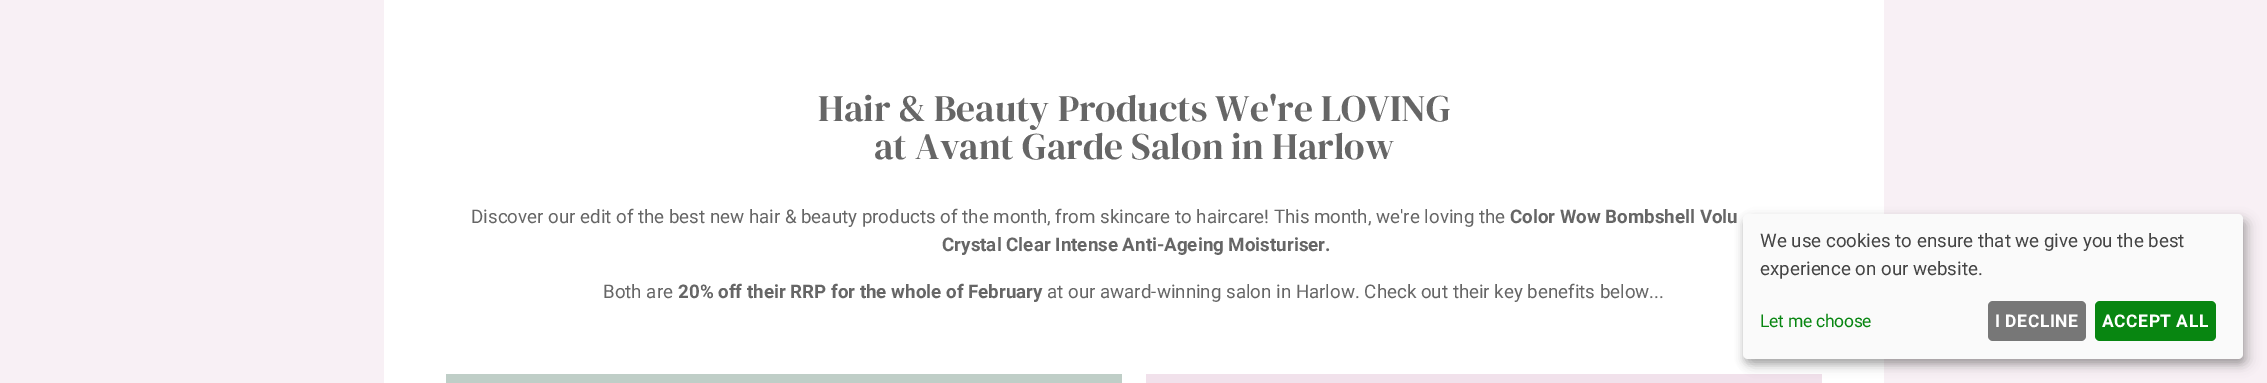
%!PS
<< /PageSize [2267 383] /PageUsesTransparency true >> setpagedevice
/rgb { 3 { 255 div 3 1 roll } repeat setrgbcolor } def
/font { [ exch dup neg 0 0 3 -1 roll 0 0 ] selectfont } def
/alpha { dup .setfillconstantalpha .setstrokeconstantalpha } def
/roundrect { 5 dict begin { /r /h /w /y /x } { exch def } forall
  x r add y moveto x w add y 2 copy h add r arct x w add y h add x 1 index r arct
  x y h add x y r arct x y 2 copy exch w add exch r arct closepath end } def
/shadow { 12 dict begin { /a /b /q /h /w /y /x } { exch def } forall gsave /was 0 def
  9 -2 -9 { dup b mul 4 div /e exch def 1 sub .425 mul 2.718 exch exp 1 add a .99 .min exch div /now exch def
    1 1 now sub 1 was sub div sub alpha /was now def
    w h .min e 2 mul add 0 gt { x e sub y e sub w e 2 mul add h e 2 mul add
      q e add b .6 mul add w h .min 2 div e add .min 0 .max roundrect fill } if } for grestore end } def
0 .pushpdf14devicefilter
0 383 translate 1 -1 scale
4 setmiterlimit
248 240 245 rgb
0 0 2267 383 rectfill
[
  [384 0 1500 383 255 255 255]
  [446 374 676 9 191 206 199]
  [1146 374 676 9 241 225 235]
] { aload pop rgb rectfill } forall
0 0 0 rgb
1749 220 500 145 5 6 0.19 shadow
1743 219 500 145 5 4 0.2 shadow
250 250 250 rgb
1743 214 500 145 5 roundrect fill
119 119 119 rgb
1988 301 98 40 5 roundrect fill
8 134 17 rgb
2095 301 121 40 5 roundrect fill
/DMSerifDisplay-Regular 37.5 font
102 102 102 rgb
818 121 moveto (Hair & Beauty Products We're LOVING) show
874 159 moveto (at Avant Garde Salon in Harlow) show
/Roboto-Regular 18.75 font
471 223 moveto (Discover our edit of the best new hair & beauty products of the month, from skincare to haircare! This month, we're loving the) show
/Roboto-Bold 18.75 font
1510 223 moveto (Color Wow Bombshell Volu) show
942 251 moveto (Crystal Clear Intense Anti-Ageing Moisturiser.) show
/Roboto-Regular 18.75 font
603 298 moveto (Both are) show
/Roboto-Bold 18.75 font
678 298 moveto (20% off their RRP for the whole of February) show
/Roboto-Regular 18.75 font
1047 298 moveto (at our award-winning salon in Harlow. Check out their key benefits below...) show
68 68 68 rgb
1760 247 moveto (We use cookies to ensure that we give you the best) show
1760 275 moveto (experience on our website.) show
/Roboto-Regular 17.5 font
8 134 17 rgb
1760 327 moveto -0.25 0 (Let me choose) ashow
/Roboto-Bold 17.5 font
255 255 255 rgb
1995 327 moveto 0.5 0 (I DECLINE) ashow
2102 327 moveto 0.5 0 (ACCEPT ALL) ashow
.poppdf14devicefilter showpage
